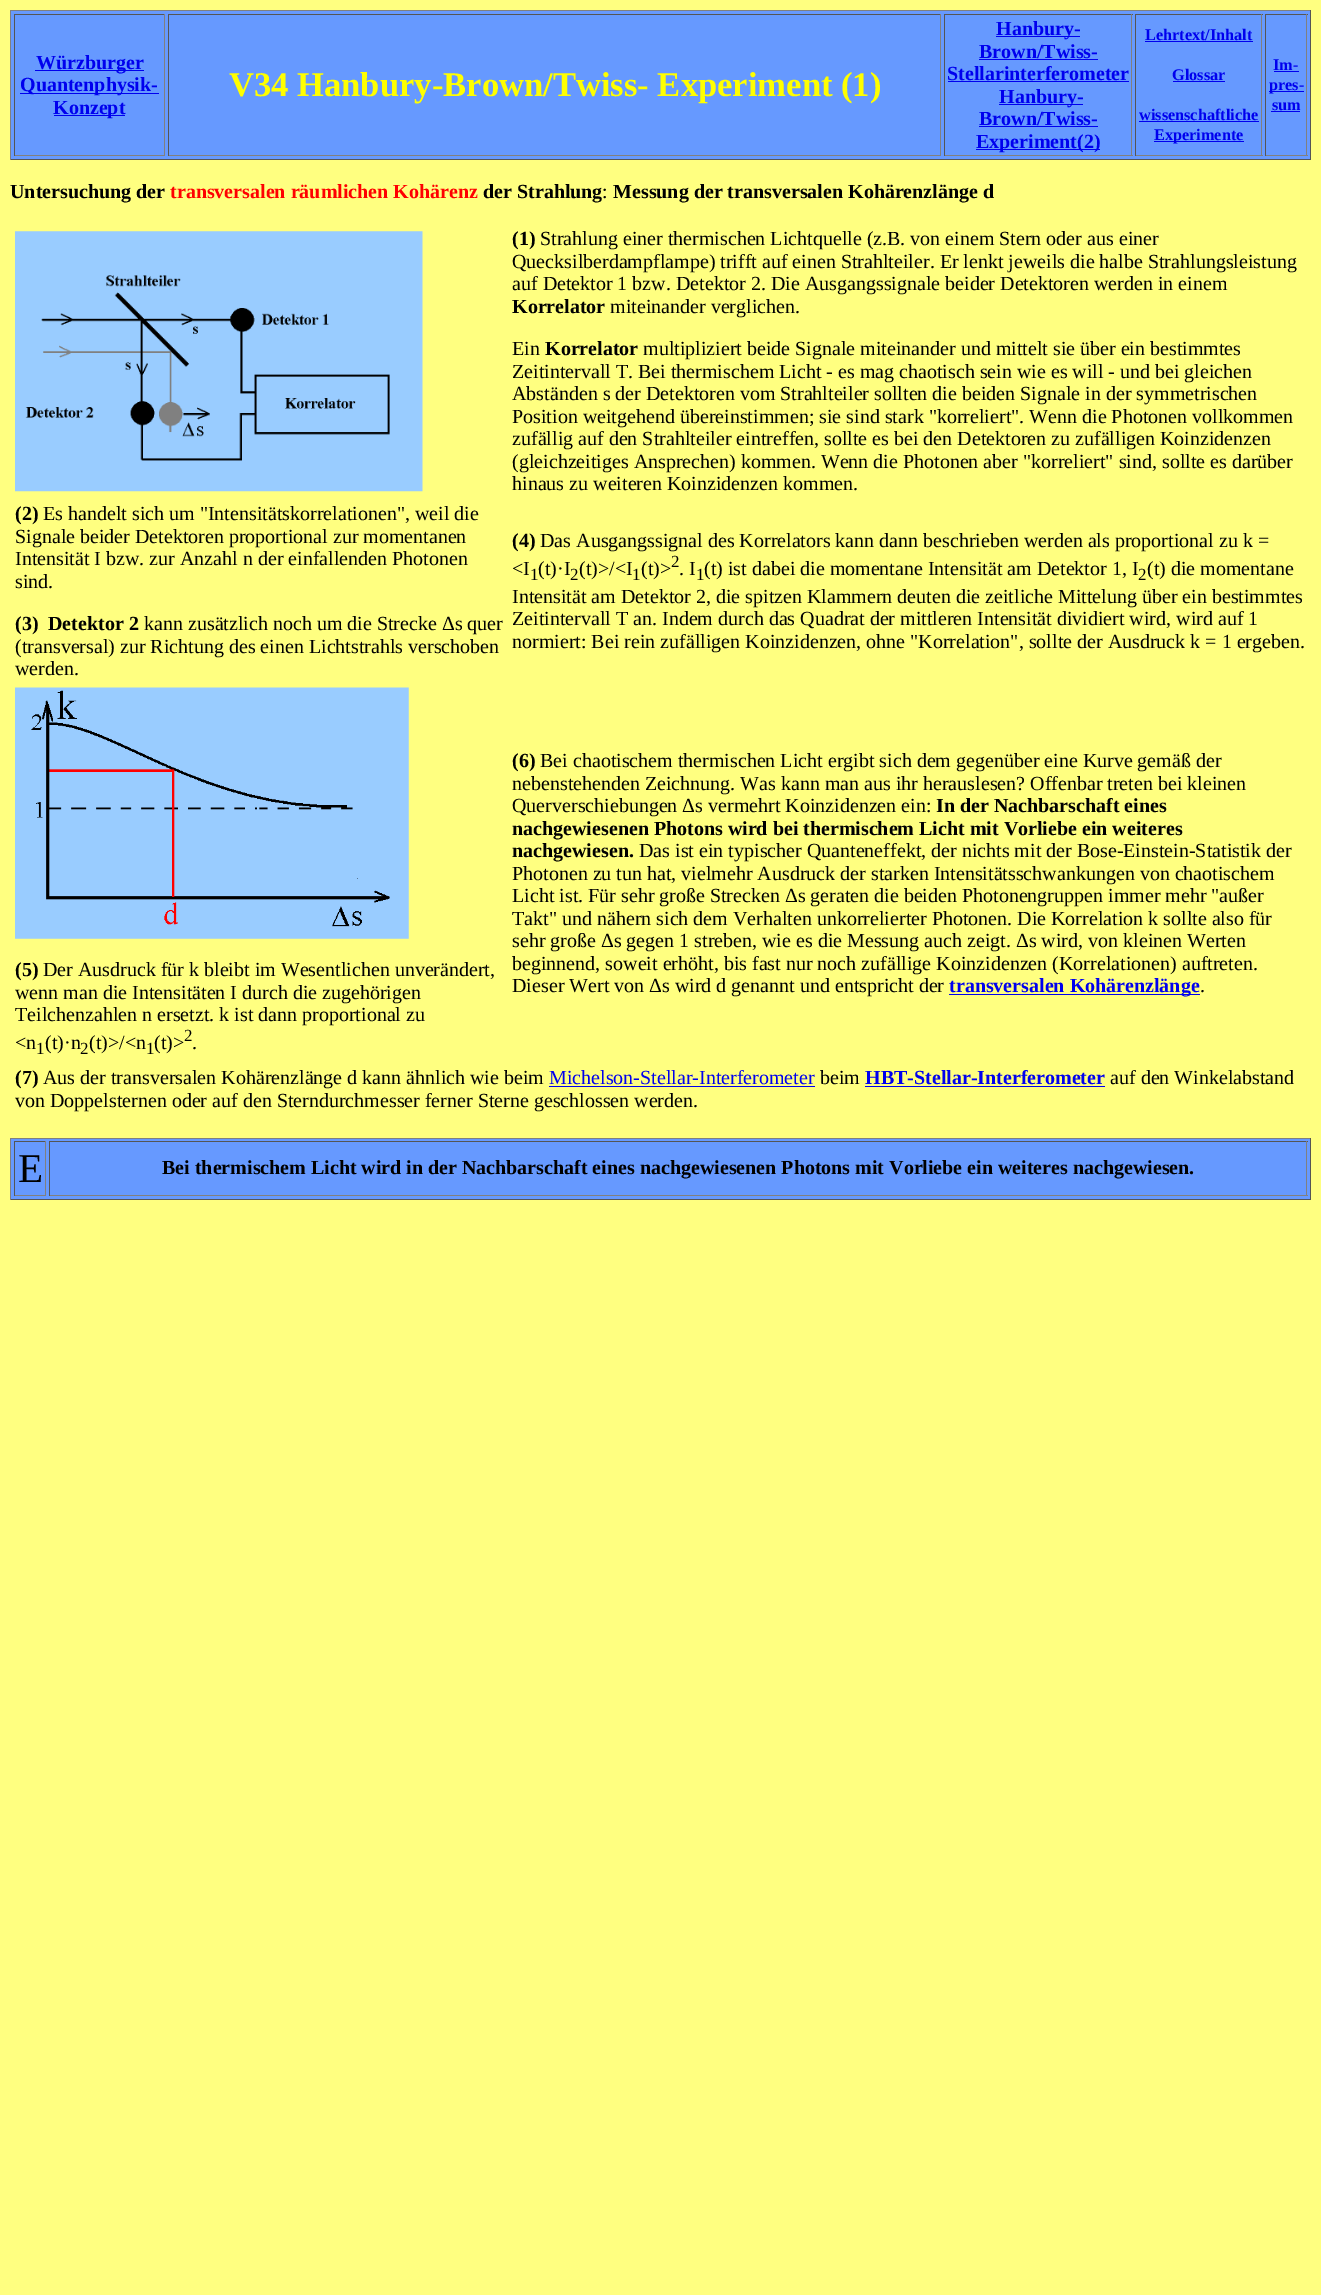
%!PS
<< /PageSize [1321 2295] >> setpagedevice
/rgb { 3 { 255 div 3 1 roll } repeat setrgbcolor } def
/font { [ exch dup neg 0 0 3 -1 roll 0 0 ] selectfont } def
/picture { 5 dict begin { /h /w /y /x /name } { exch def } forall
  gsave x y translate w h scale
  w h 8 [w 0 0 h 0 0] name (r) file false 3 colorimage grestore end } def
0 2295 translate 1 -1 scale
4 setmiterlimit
255 255 128 rgb
0 0 1321 2295 rectfill
[
  [11 11 1299 148 102 153 255]
  [10 10 1301 1 128 128 128]
  [1310 10 1 150 85 85 85]
  [10 159 1301 1 85 85 85]
  [10 10 1 150 128 128 128]
  [14 14 151 1 85 85 85]
  [164 14 1 142 128 128 128]
  [14 155 151 1 128 128 128]
  [14 14 1 142 85 85 85]
  [35 70 109 1 0 0 238]
  [20 93 139 1 0 0 238]
  [54 115 71 1 0 0 238]
  [168 14 773 1 85 85 85]
  [940 14 1 142 128 128 128]
  [168 155 773 1 128 128 128]
  [168 14 1 142 85 85 85]
  [944 14 189 1 85 85 85]
  [1131 14 1 142 128 128 128]
  [944 155 189 1 128 128 128]
  [944 14 1 142 85 85 85]
  [996 36 84 1 0 0 238]
  [979 59 119 1 0 0 238]
  [948 81 181 1 0 0 238]
  [999 104 84 1 0 0 238]
  [979 126 119 1 0 0 238]
  [976 149 124 1 0 0 238]
  [1135 14 128 1 85 85 85]
  [1261 14 1 142 128 128 128]
  [1135 155 128 1 128 128 128]
  [1135 14 1 142 85 85 85]
  [1145 41 108 1 0 0 238]
  [1173 81 52 1 0 0 238]
  [1139 121 120 1 0 0 238]
  [1154 141 90 1 0 0 238]
  [1265 14 43 1 85 85 85]
  [1306 14 1 142 128 128 128]
  [1265 155 43 1 128 128 128]
  [1265 14 1 142 85 85 85]
  [1274 71 25 1 0 0 238]
  [1269 91 35 1 0 0 238]
  [1271 111 29 1 0 0 238]
] { aload pop rgb rectfill } forall
(img/1.rgb) 15 231 408 261 picture
949 994 251 1 rectfill
(img/2.rgb) 15 687 394 252 picture
[
  [549 1086 266 1 0 0 238]
  [865 1086 240 1 0 0 238]
  [11 1139 1299 60 102 153 255]
  [10 1138 1301 1 128 128 128]
  [1310 1138 1 62 85 85 85]
  [10 1199 1301 1 85 85 85]
  [10 1138 1 62 128 128 128]
  [14 1141 32 1 85 85 85]
  [45 1141 1 55 128 128 128]
  [14 1195 32 1 128 128 128]
  [14 1141 1 55 85 85 85]
  [49 1141 1259 1 85 85 85]
  [1306 1141 1 55 128 128 128]
  [49 1195 1259 1 128 128 128]
  [49 1141 1 55 85 85 85]
] { aload pop rgb rectfill } forall
/LiberationSerif-Bold 20 font
0 0 238 rgb
[
  [(Würzburger) 36 69]
  [(Quantenphysik-) 20 91]
  [(Konzept) 53 114]
] { aload pop moveto show } forall
/LiberationSerif-Bold 34.6 font
255 255 0 rgb
229 96 moveto (V34) show
297 96 moveto (Hanbury-Brown/Twiss- Experiment \(1\)) show
/LiberationSerif-Bold 20 font
0 0 238 rgb
[
  [(Hanbury-) 996 35]
  [(Brown/Twiss-) 979 58]
  [(Stellarinterferometer) 947 80]
  [(Hanbury-) 999 103]
  [(Brown/Twiss-) 979 125]
  [(Experiment\(2\)) 976 148]
] { aload pop moveto show } forall
/LiberationSerif-Bold 16.25 font
[
  [(Lehrtext/Inhalt) 1145 40]
  [(Glossar) 1172 80]
  [(wissenschaftliche) 1139 120]
  [(Experimente) 1154 140]
  [(Im-) 1273 70]
  [(pres-) 1269 90]
  [(sum) 1272 110]
] { aload pop moveto show } forall
/LiberationSerif-Bold 20 font
0 0 0 rgb
10 198 moveto (Untersuchung der) show
255 0 0 rgb
170 198 moveto (transversalen räumlichen Kohärenz) show
0 0 0 rgb
483 198 moveto (der Strahlung) show
/LiberationSerif-Regular 20 font
602 198 moveto (:) show
/LiberationSerif-Bold 20 font
613 198 moveto (Messung der transversalen Kohärenzlänge d) show
512 245 moveto (\(1\)) show
/LiberationSerif-Regular 20 font
[
  [(Strahlung einer thermischen Lichtquelle \(z.B. von einem Stern oder aus einer) 540 245]
  [(Quecksilberdampflampe\) trifft auf einen Strahlteiler. Er lenkt jeweils die halbe Strahlungsleistung) 512 268]
  [(auf Detektor 1 bzw. Detektor 2. Die Ausgangssignale beider Detektoren werden in einem) 512 290]
] { aload pop moveto show } forall
/LiberationSerif-Bold 20 font
512 313 moveto (Korrelator) show
/LiberationSerif-Regular 20 font
610 313 moveto (miteinander verglichen.) show
512 355 moveto (Ein) show
/LiberationSerif-Bold 20 font
545 355 moveto (Korrelator) show
/LiberationSerif-Regular 20 font
[
  [(multipliziert beide Signale miteinander und mittelt sie über ein bestimmtes) 643 355]
  [(Zeitintervall T. Bei thermischem Licht - es mag chaotisch sein wie es will - und bei gleichen) 512 378]
  [(Abständen s der Detektoren vom Strahlteiler sollten die beiden Signale in der symmetrischen) 512 400]
  [(Position weitgehend übereinstimmen; sie sind stark "korreliert". Wenn die Photonen vollkommen) 512 423]
  [(zufällig auf den Strahlteiler eintreffen, sollte es bei den Detektoren zu zufälligen Koinzidenzen) 512 445]
  [(\(gleichzeitiges Ansprechen\) kommen. Wenn die Photonen aber "korreliert" sind, sollte es darüber) 512 468]
  [(hinaus zu weiteren Koinzidenzen kommen.) 512 490]
] { aload pop moveto show } forall
/LiberationSerif-Bold 20 font
15 520 moveto (\(2\)) show
/LiberationSerif-Regular 20 font
[
  [(Es handelt sich um "Intensitätskorrelationen", weil die) 43 520]
  [(Signale beider Detektoren proportional zur momentanen) 15 543]
  [(Intensität I bzw. zur Anzahl n der einfallenden Photonen) 15 565]
  [(sind.) 15 588]
] { aload pop moveto show } forall
/LiberationSerif-Bold 20 font
15 630 moveto (\(3\)) show
48 630 moveto (Detektor 2) show
/LiberationSerif-Regular 20 font
[
  [(kann zusätzlich noch um die Strecke Δs quer) 144 630]
  [(\(transversal\) zur Richtung des einen Lichtstrahls verschoben) 15 653]
  [(werden.) 15 675]
] { aload pop moveto show } forall
/LiberationSerif-Bold 20 font
512 547 moveto (\(4\)) show
/LiberationSerif-Regular 20 font
540 547 moveto (Das Ausgangssignal des Korrelators kann dann beschrieben werden als proportional zu k =) show
512 575 moveto (<I) show
/LiberationSerif-Regular 17 font
530 580 moveto (1) show
/LiberationSerif-Regular 20 font
538 575 moveto (\(t\)·I) show
/LiberationSerif-Regular 17 font
570 580 moveto (2) show
/LiberationSerif-Regular 20 font
579 575 moveto (\(t\)>/<I) show
/LiberationSerif-Regular 17 font
632 580 moveto (1) show
/LiberationSerif-Regular 20 font
641 575 moveto (\(t\)>) show
/LiberationSerif-Regular 17 font
671 567 moveto (2) show
/LiberationSerif-Regular 20 font
679 575 moveto (. I) show
/LiberationSerif-Regular 17 font
696 580 moveto (1) show
/LiberationSerif-Regular 20 font
704 575 moveto (\(t\) ist dabei die momentane Intensität am Detektor 1, I) show
/LiberationSerif-Regular 17 font
1138 580 moveto (2) show
/LiberationSerif-Regular 20 font
[
  [(\(t\) die momentane) 1147 575]
  [(Intensität am Detektor 2, die spitzen Klammern deuten die zeitliche Mittelung über ein bestimmtes) 512 603]
  [(Zeitintervall T an. Indem durch das Quadrat der mittleren Intensität dividiert wird, wird auf 1) 512 625]
  [(normiert: Bei rein zufälligen Koinzidenzen, ohne "Korrelation", sollte der Ausdruck k = 1 ergeben.) 512 648]
] { aload pop moveto show } forall
/LiberationSerif-Bold 20 font
512 767 moveto (\(6\)) show
/LiberationSerif-Regular 20 font
[
  [(Bei chaotischem thermischen Licht ergibt sich dem gegenüber eine Kurve gemäß der) 540 767]
  [(nebenstehenden Zeichnung. Was kann man aus ihr herauslesen? Offenbar treten bei kleinen) 512 790]
  [(Querverschiebungen Δs vermehrt Koinzidenzen ein:) 512 812]
] { aload pop moveto show } forall
/LiberationSerif-Bold 20 font
[
  [(In der Nachbarschaft eines) 936 812]
  [(nachgewiesenen Photons wird bei thermischem Licht mit Vorliebe ein weiteres) 512 835]
  [(nachgewiesen.) 512 857]
] { aload pop moveto show } forall
/LiberationSerif-Regular 20 font
[
  [(Das ist ein typischer Quanteneffekt, der nichts mit der Bose-Einstein-Statistik der) 639 857]
  [(Photonen zu tun hat, vielmehr Ausdruck der starken Intensitätsschwankungen von chaotischem) 512 880]
  [(Licht ist. Für sehr große Strecken Δs geraten die beiden Photonengruppen immer mehr "außer) 512 902]
  [(Takt" und nähern sich dem Verhalten unkorrelierter Photonen. Die Korrelation k sollte also für) 512 925]
  [(sehr große Δs gegen 1 streben, wie es die Messung auch zeigt. Δs wird, von kleinen Werten) 512 947]
  [(beginnend, soweit erhöht, bis fast nur noch zufällige Koinzidenzen \(Korrelationen\) auftreten.) 512 970]
  [(Dieser Wert von Δs wird d genannt und entspricht der) 512 992]
] { aload pop moveto show } forall
/LiberationSerif-Bold 20 font
0 0 238 rgb
949 992 moveto (transversalen Kohärenzlänge) show
/LiberationSerif-Regular 20 font
0 0 0 rgb
1200 992 moveto (.) show
/LiberationSerif-Bold 20 font
15 976 moveto (\(5\)) show
/LiberationSerif-Regular 20 font
[
  [(Der Ausdruck für k bleibt im Wesentlichen unverändert,) 43 976]
  [(wenn man die Intensitäten I durch die zugehörigen) 15 999]
  [(Teilchenzahlen n ersetzt. k ist dann proportional zu) 15 1021]
  [(<n) 15 1049]
] { aload pop moveto show } forall
/LiberationSerif-Regular 17 font
36 1054 moveto (1) show
/LiberationSerif-Regular 20 font
45 1049 moveto (\(t\)·n) show
/LiberationSerif-Regular 17 font
80 1054 moveto (2) show
/LiberationSerif-Regular 20 font
89 1049 moveto (\(t\)>/<n) show
/LiberationSerif-Regular 17 font
146 1054 moveto (1) show
/LiberationSerif-Regular 20 font
154 1049 moveto (\(t\)>) show
/LiberationSerif-Regular 17 font
184 1041 moveto (2) show
/LiberationSerif-Regular 20 font
192 1049 moveto (.) show
/LiberationSerif-Bold 20 font
15 1084 moveto (\(7\)) show
/LiberationSerif-Regular 20 font
43 1084 moveto (Aus der transversalen Kohärenzlänge d kann ähnlich wie beim) show
0 0 238 rgb
549 1084 moveto (Michelson-Stellar-Interferometer) show
0 0 0 rgb
820 1084 moveto (beim) show
/LiberationSerif-Bold 20 font
0 0 238 rgb
865 1084 moveto (HBT-Stellar-Interferometer) show
/LiberationSerif-Regular 20 font
0 0 0 rgb
1110 1084 moveto (auf den Winkelabstand) show
15 1107 moveto (von Doppelsternen oder auf den Sterndurchmesser ferner Sterne geschlossen werden.) show
/LiberationSerif-Regular 41 font
18 1182 moveto (E) show
/LiberationSerif-Bold 20 font
162 1174 moveto (Bei thermischem Licht wird in der Nachbarschaft eines nachgewiesenen Photons mit Vorliebe ein weiteres nachgewiesen.) show
showpage
